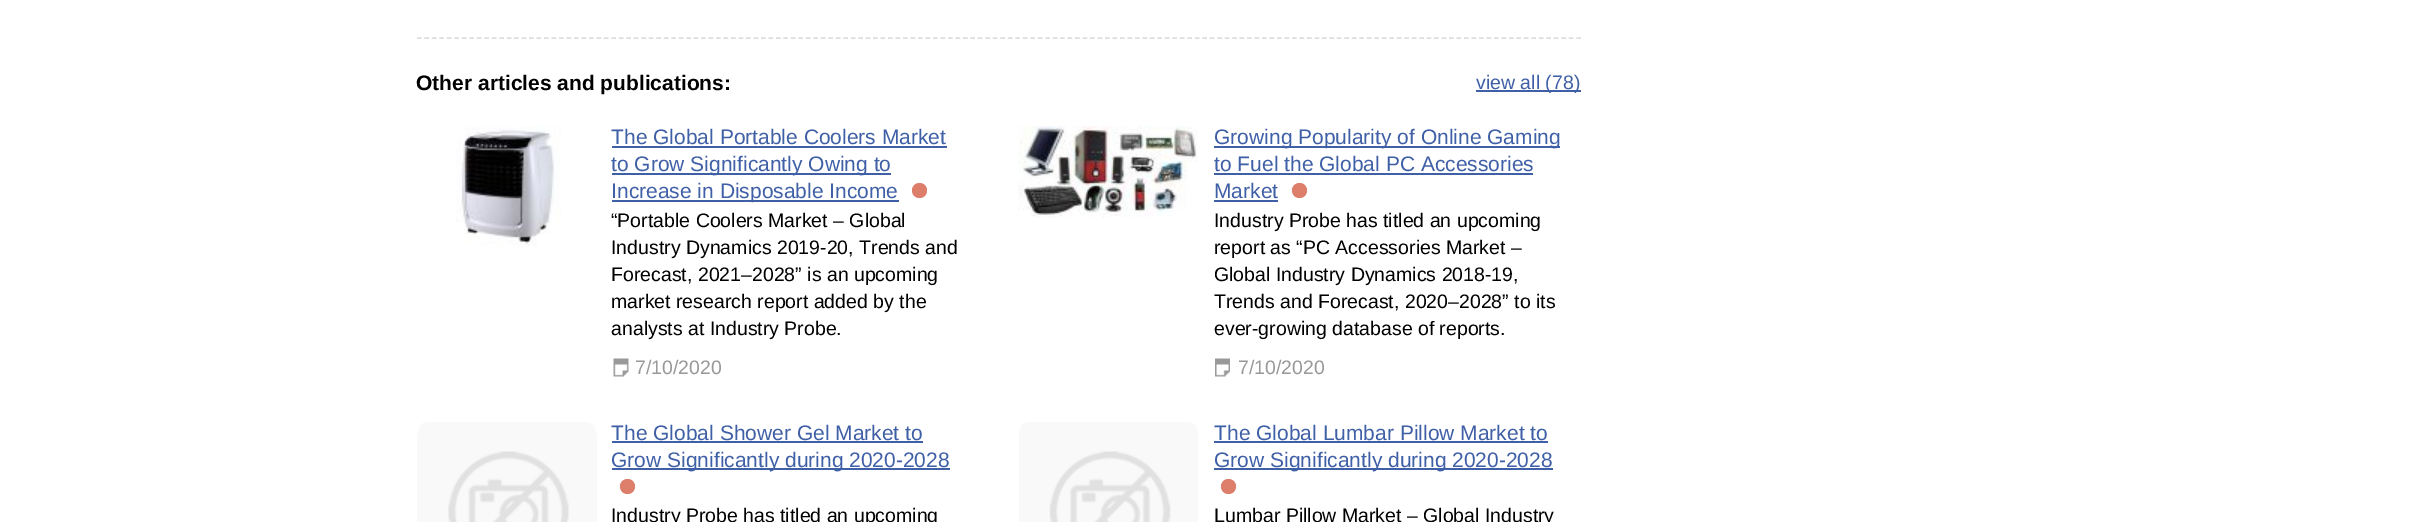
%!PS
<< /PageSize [2429 522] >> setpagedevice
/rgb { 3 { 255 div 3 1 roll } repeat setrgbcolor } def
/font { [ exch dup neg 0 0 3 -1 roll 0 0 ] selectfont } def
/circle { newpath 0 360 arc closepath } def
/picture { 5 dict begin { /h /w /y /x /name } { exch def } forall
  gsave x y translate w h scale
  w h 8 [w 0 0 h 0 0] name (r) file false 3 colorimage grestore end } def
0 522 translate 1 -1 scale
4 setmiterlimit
255 255 255 rgb
0 0 2429 522 rectfill
221 221 221 rgb
1.5 setlinewidth
[4.5 2.98] 0 setdash
417 38 moveto 1581 38 lineto stroke
63 95 166 rgb
1476 90 105 2 rectfill
(img/1.rgb) 456 126 105 120 picture
[
  [612 146 335 2 63 95 166]
  [612 173 279 2 63 95 166]
  [612 200 287 2 63 95 166]
] { aload pop rgb rectfill } forall
221 126 107 rgb
919.5 190.5 7.5 circle fill
(img/2.rgb) 613 358 16 19 picture
(img/3.rgb) 1018 126 180 92 picture
(img/4.rgb) 1024 126 173 3 picture
[
  [1214 146 346 2 63 95 166]
  [1214 173 319 2 63 95 166]
  [1214 200 64 2 63 95 166]
] { aload pop rgb rectfill } forall
221 126 107 rgb
1299.5 190.5 7.5 circle fill
(img/5.rgb) 1215 358 15 19 picture
(img/6.rgb) 417 422 180 100 picture
63 95 166 rgb
612 441 311 2 rectfill
612 468 338 2 rectfill
221 126 107 rgb
627.5 486.5 7.5 circle fill
(img/7.rgb) 1019 422 179 100 picture
63 95 166 rgb
1214 441 334 2 rectfill
1214 468 339 2 rectfill
221 126 107 rgb
1228.5 486.5 7.5 circle fill
/LiberationSans-Bold 21 font
0 0 0 rgb
416 90 moveto (Other articles and publications:) show
/LiberationSans-Regular 19.5 font
63 95 166 rgb
1476 89 moveto (view all \(78\)) show
/LiberationSans-Regular 21 font
[
  [(The Global Portable Coolers Market) 611 144]
  [(to Grow Significantly Owing to) 611 171]
  [(Increase in Disposable Income) 611 198]
] { aload pop moveto show } forall
/LiberationSans-Regular 19.5 font
0 0 0 rgb
[
  [(“Portable Coolers Market – Global) 611 227]
  [(Industry Dynamics 2019-20, Trends and) 611 254]
  [(Forecast, 2021–2028” is an upcoming) 611 281]
  [(market research report added by the) 611 308]
  [(analysts at Industry Probe.) 611 335]
] { aload pop moveto show } forall
153 153 153 rgb
635 374 moveto (7/10/2020) show
/LiberationSans-Regular 21 font
63 95 166 rgb
[
  [(Growing Popularity of Online Gaming) 1214 144]
  [(to Fuel the Global PC Accessories) 1214 171]
  [(Market) 1214 198]
] { aload pop moveto show } forall
/LiberationSans-Regular 19.5 font
0 0 0 rgb
[
  [(Industry Probe has titled an upcoming) 1214 227]
  [(report as “PC Accessories Market –) 1214 254]
  [(Global Industry Dynamics 2018-19,) 1214 281]
  [(Trends and Forecast, 2020–2028” to its) 1214 308]
  [(ever-growing database of reports.) 1214 335]
] { aload pop moveto show } forall
153 153 153 rgb
1238 374 moveto (7/10/2020) show
/LiberationSans-Regular 21 font
63 95 166 rgb
611 440 moveto (The Global Shower Gel Market to) show
611 467 moveto (Grow Significantly during 2020-2028) show
/LiberationSans-Regular 19.5 font
0 0 0 rgb
611 522 moveto (Industry Probe has titled an upcoming) show
/LiberationSans-Regular 21 font
63 95 166 rgb
1214 440 moveto (The Global Lumbar Pillow Market to) show
1214 467 moveto (Grow Significantly during 2020-2028) show
/LiberationSans-Regular 19.5 font
0 0 0 rgb
1214 522 moveto (Lumbar Pillow Market – Global Industry) show
showpage
